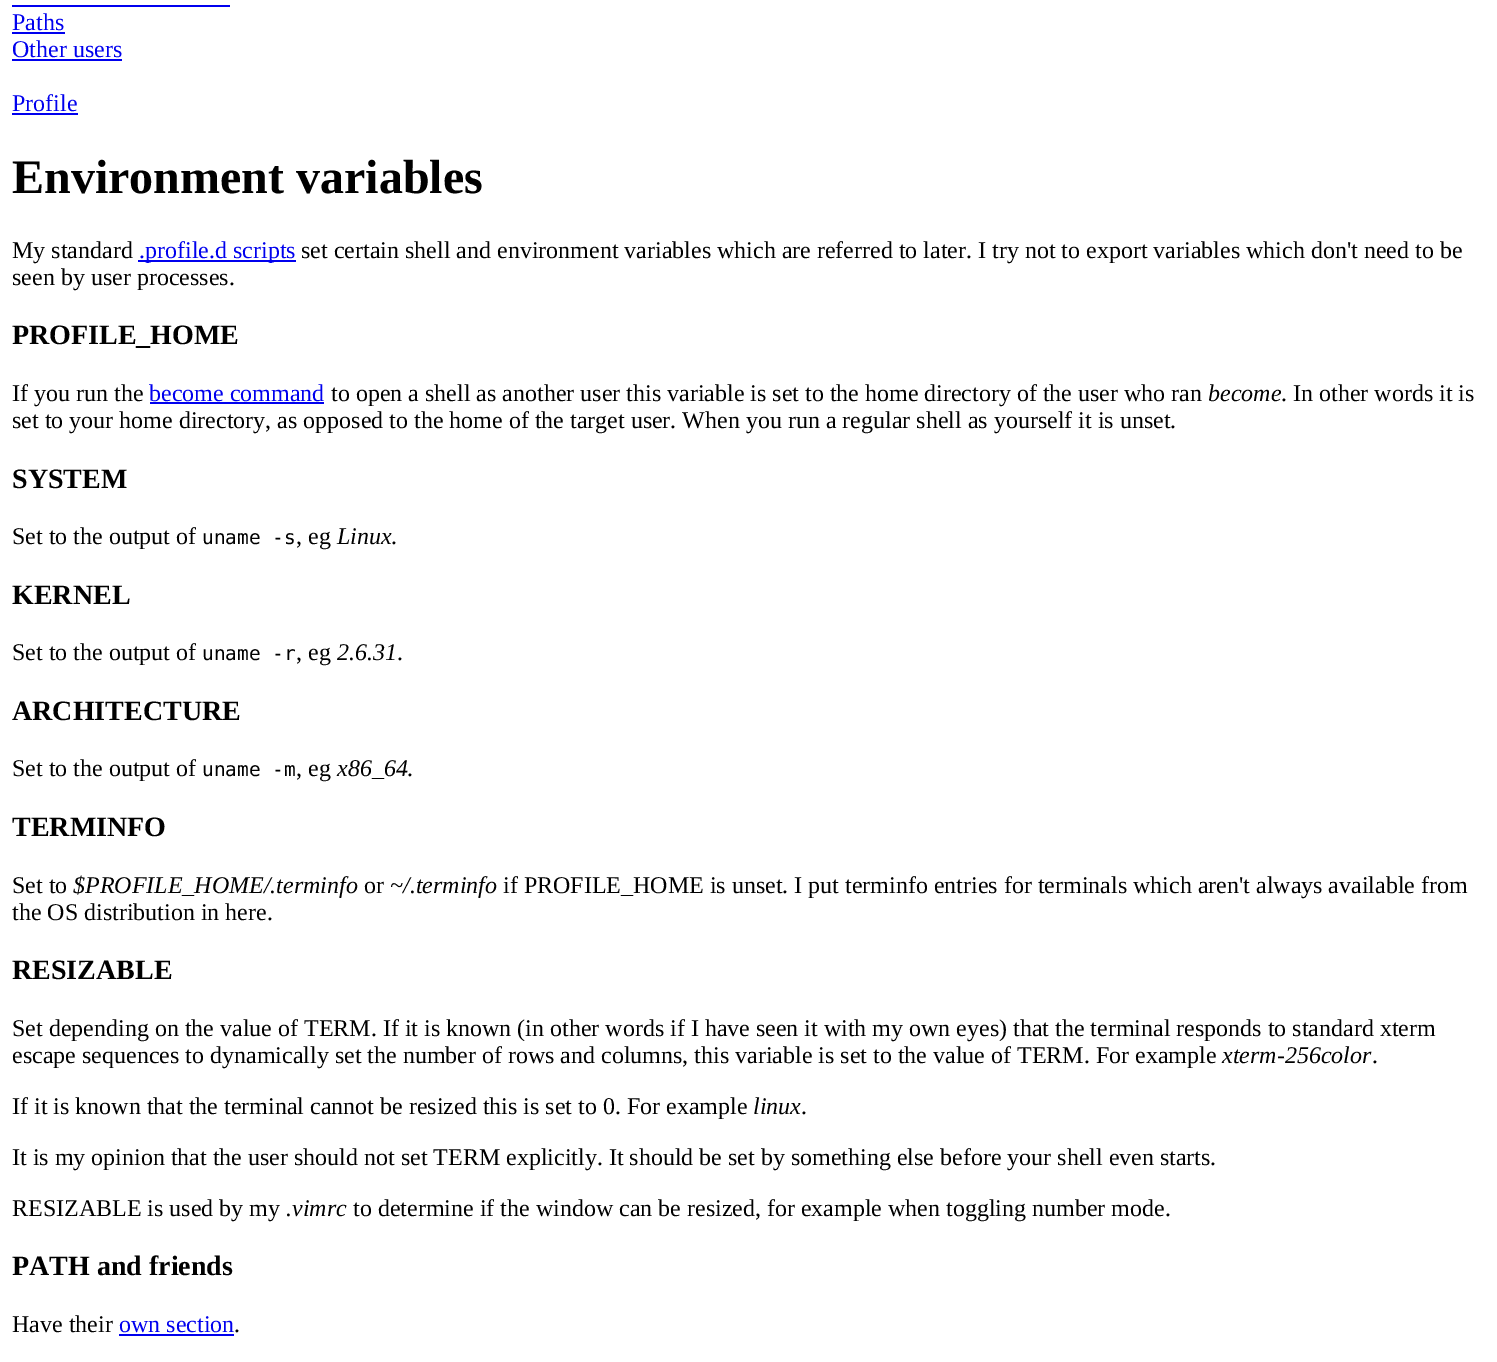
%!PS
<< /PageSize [1497 1362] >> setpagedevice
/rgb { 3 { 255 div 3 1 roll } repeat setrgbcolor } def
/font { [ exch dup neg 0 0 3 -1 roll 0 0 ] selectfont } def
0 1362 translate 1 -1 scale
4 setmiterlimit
255 255 255 rgb
0 0 1497 1362 rectfill
[
  [12 5 218 2 0 0 238]
  [12 32 53 2 0 0 238]
  [12 59 110 2 0 0 238]
  [12 113 66 2 0 0 238]
  [138 260 158 2 0 0 238]
  [150 402 174 2 0 0 238]
  [119 1334 115 2 0 0 238]
] { aload pop rgb rectfill } forall
/LiberationSerif-Regular 24 font
[
  [(Paths) 12 30]
  [(Other users) 12 57]
  [(Profile) 12 111]
] { aload pop moveto show } forall
/LiberationSerif-Bold 48 font
0 0 0 rgb
12 193 moveto (Environment variables) show
/LiberationSerif-Regular 24 font
12 258 moveto (My standard) show
0 0 238 rgb
139 258 moveto (.profile.d scripts) show
0 0 0 rgb
301 258 moveto (set certain shell and environment variables which are referred to later. I try not to export variables which don't need to be) show
12 285 moveto (seen by user processes.) show
/LiberationSerif-Bold 28 font
12 344 moveto (PROFILE_HOME) show
/LiberationSerif-Regular 24 font
12 401 moveto (If you run the) show
0 0 238 rgb
149 401 moveto (become command) show
0 0 0 rgb
331 401 moveto (to open a shell as another user this variable is set to the home directory of the user who ran) show
/LiberationSerif-Italic 24 font
1208 401 moveto (become) show
/LiberationSerif-Regular 24 font
1281 401 moveto (. In other words it is) show
12 428 moveto (set to your home directory, as opposed to the home of the target user. When you run a regular shell as yourself it is unset.) show
/LiberationSerif-Bold 28 font
12 488 moveto (SYSTEM) show
/LiberationSerif-Regular 24 font
12 544 moveto (Set to the output of) show
/DejaVuSansMono-Regular 19.5 font
202 544 moveto (uname -s) show
/LiberationSerif-Regular 24 font
296 544 moveto (, eg) show
/LiberationSerif-Italic 24 font
337 544 moveto (Linux) show
/LiberationSerif-Regular 24 font
391 544 moveto (.) show
/LiberationSerif-Bold 28 font
12 604 moveto (KERNEL) show
/LiberationSerif-Regular 24 font
12 660 moveto (Set to the output of) show
/DejaVuSansMono-Regular 19.5 font
202 660 moveto (uname -r) show
/LiberationSerif-Regular 24 font
296 660 moveto (, eg) show
/LiberationSerif-Italic 24 font
337 660 moveto (2.6.31) show
/LiberationSerif-Regular 24 font
397 660 moveto (.) show
/LiberationSerif-Bold 28 font
12 720 moveto (ARCHITECTURE) show
/LiberationSerif-Regular 24 font
12 776 moveto (Set to the output of) show
/DejaVuSansMono-Regular 19.5 font
202 776 moveto (uname -m) show
/LiberationSerif-Regular 24 font
296 776 moveto (, eg) show
/LiberationSerif-Italic 24 font
337 776 moveto (x86_64) show
/LiberationSerif-Regular 24 font
407 776 moveto (.) show
/LiberationSerif-Bold 28 font
12 836 moveto (TERMINFO) show
/LiberationSerif-Regular 24 font
12 893 moveto (Set to) show
/LiberationSerif-Italic 24 font
73 893 moveto ($PROFILE_HOME/.terminfo) show
/LiberationSerif-Regular 24 font
364 893 moveto (or) show
/LiberationSerif-Italic 24 font
390 893 moveto (~/.terminfo) show
/LiberationSerif-Regular 24 font
503 893 moveto (if PROFILE_HOME is unset. I put terminfo entries for terminals which aren't always available from) show
12 920 moveto (the OS distribution in here.) show
/LiberationSerif-Bold 28 font
12 979 moveto (RESIZABLE) show
/LiberationSerif-Regular 24 font
12 1036 moveto (Set depending on the value of TERM. If it is known \(in other words if I have seen it with my own eyes\) that the terminal responds to standard xterm) show
12 1063 moveto (escape sequences to dynamically set the number of rows and columns, this variable is set to the value of TERM. For example) show
/LiberationSerif-Italic 24 font
1222 1063 moveto (xterm-256color) show
/LiberationSerif-Regular 24 font
1372 1063 moveto (.) show
12 1114 moveto (If it is known that the terminal cannot be resized this is set to 0. For example) show
/LiberationSerif-Italic 24 font
753 1114 moveto (linux) show
/LiberationSerif-Regular 24 font
[
  [(.) 801 1114]
  [(It is my opinion that the user should not set TERM explicitly. It should be set by something else before your shell even starts.) 12 1165]
  [(RESIZABLE is used by my) 12 1216]
] { aload pop moveto show } forall
/LiberationSerif-Italic 24 font
286 1216 moveto (.vimrc) show
/LiberationSerif-Regular 24 font
353 1216 moveto (to determine if the window can be resized, for example when toggling number mode.) show
/LiberationSerif-Bold 28 font
12 1275 moveto (PATH and friends) show
/LiberationSerif-Regular 24 font
12 1332 moveto (Have their) show
0 0 238 rgb
119 1332 moveto (own section) show
0 0 0 rgb
234 1332 moveto (.) show
showpage
